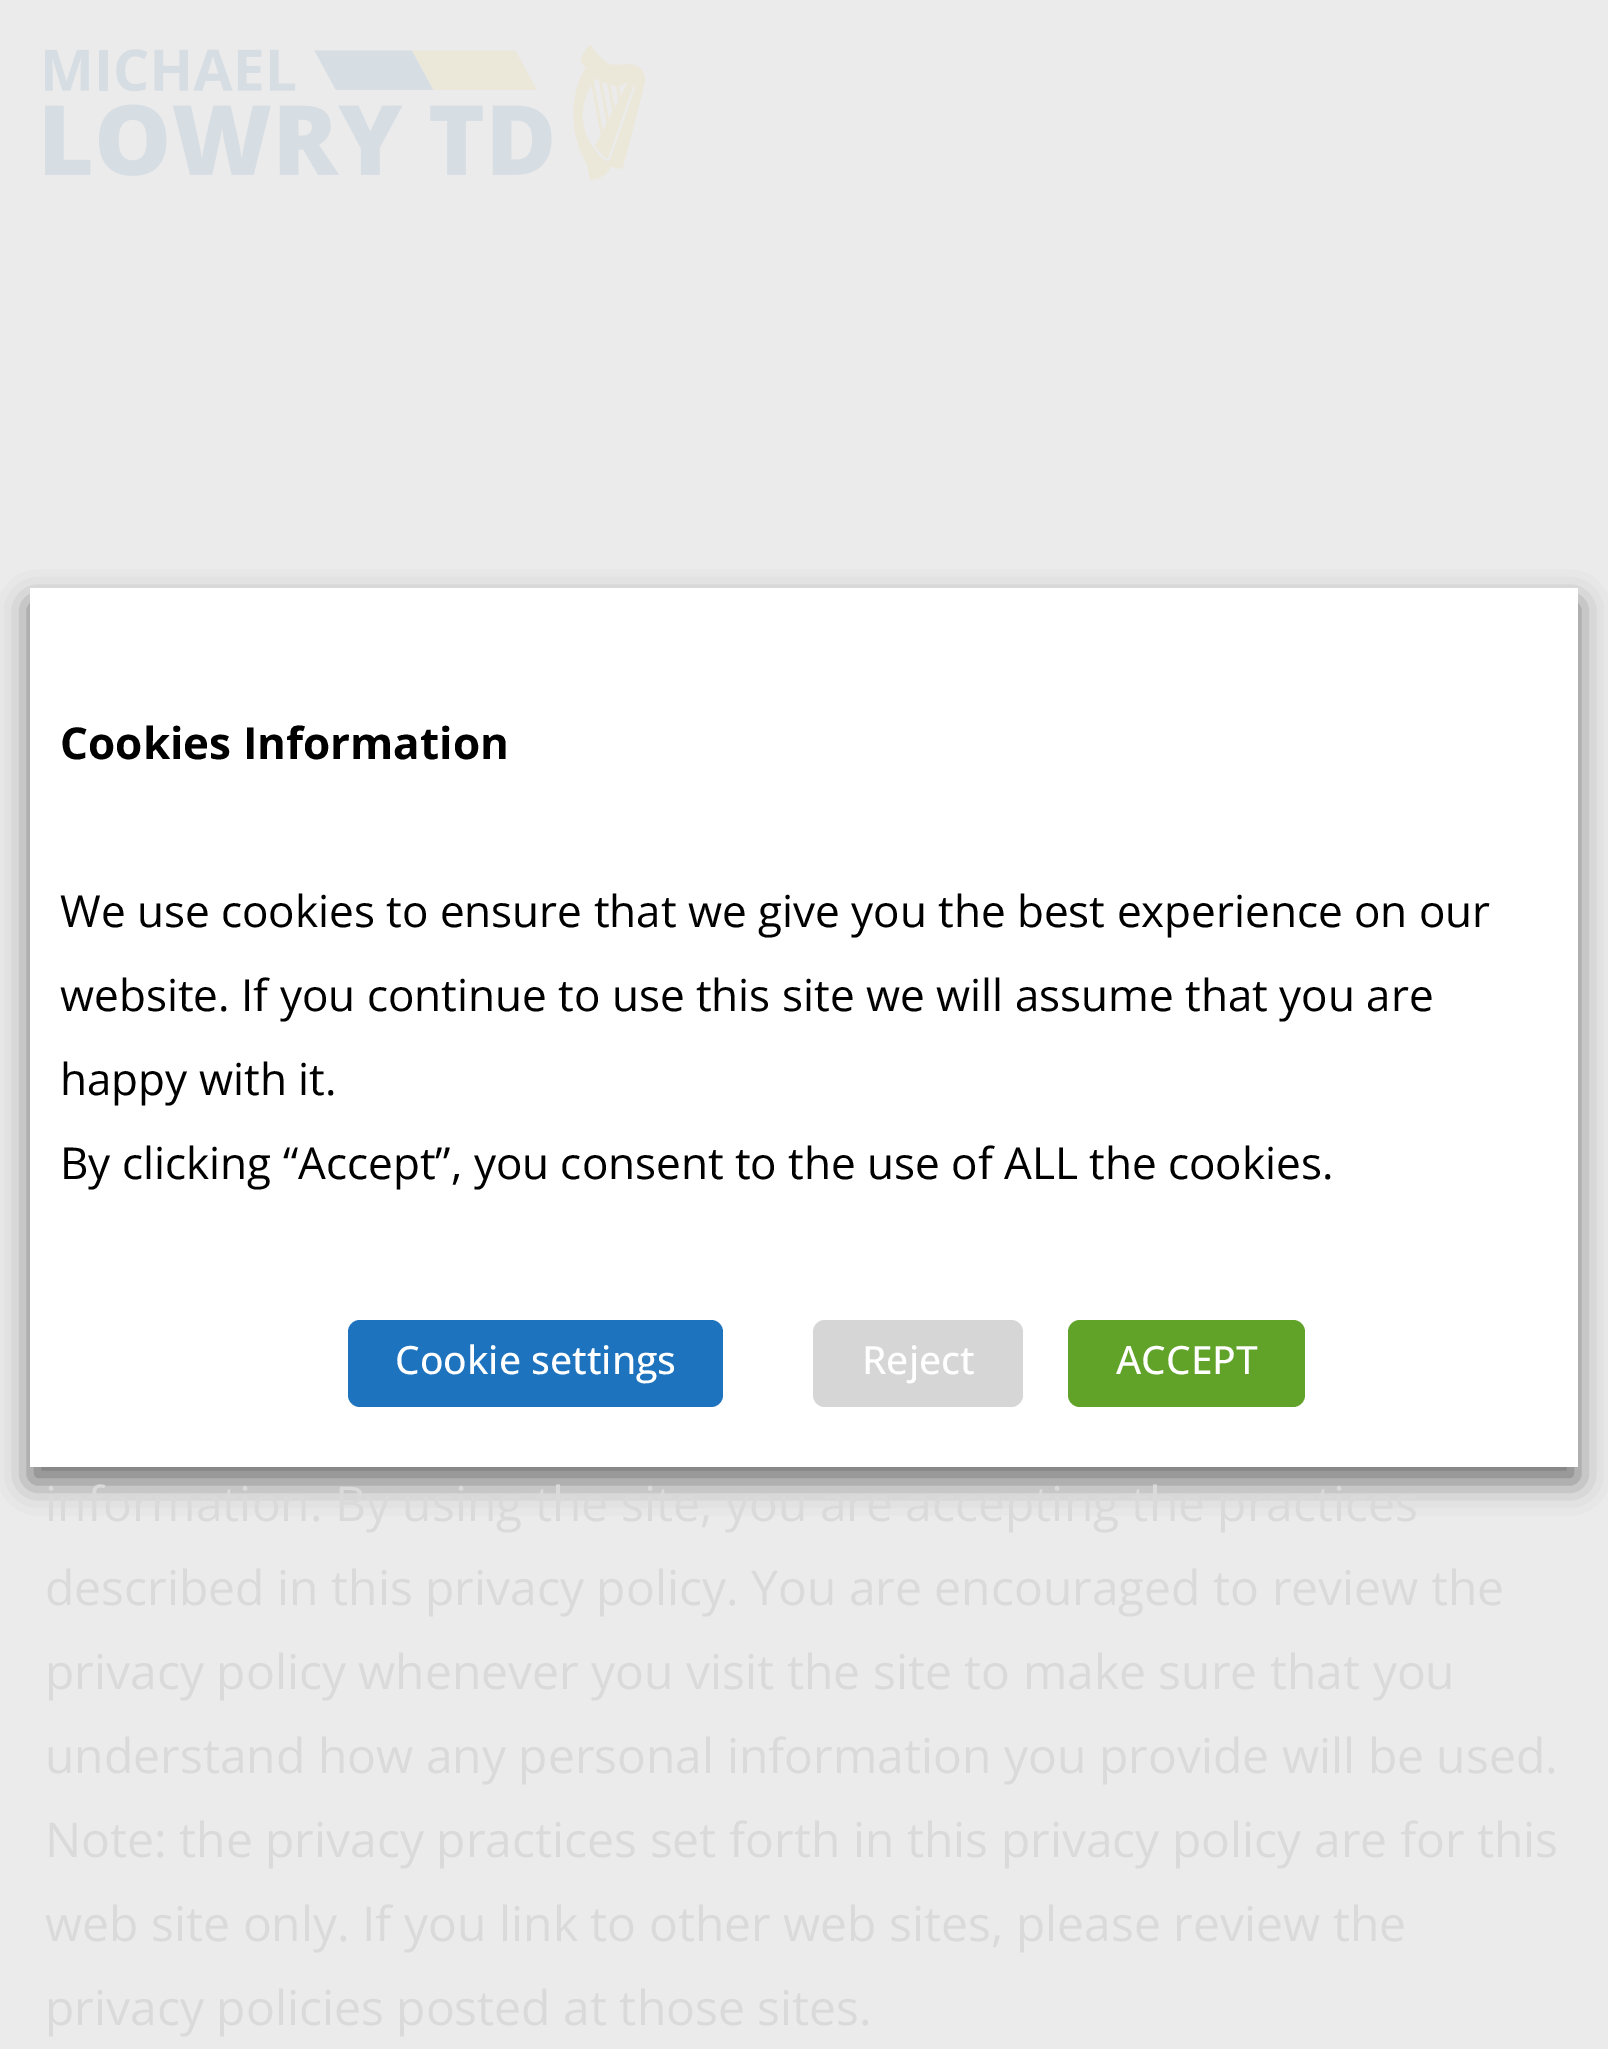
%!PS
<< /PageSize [1608 2049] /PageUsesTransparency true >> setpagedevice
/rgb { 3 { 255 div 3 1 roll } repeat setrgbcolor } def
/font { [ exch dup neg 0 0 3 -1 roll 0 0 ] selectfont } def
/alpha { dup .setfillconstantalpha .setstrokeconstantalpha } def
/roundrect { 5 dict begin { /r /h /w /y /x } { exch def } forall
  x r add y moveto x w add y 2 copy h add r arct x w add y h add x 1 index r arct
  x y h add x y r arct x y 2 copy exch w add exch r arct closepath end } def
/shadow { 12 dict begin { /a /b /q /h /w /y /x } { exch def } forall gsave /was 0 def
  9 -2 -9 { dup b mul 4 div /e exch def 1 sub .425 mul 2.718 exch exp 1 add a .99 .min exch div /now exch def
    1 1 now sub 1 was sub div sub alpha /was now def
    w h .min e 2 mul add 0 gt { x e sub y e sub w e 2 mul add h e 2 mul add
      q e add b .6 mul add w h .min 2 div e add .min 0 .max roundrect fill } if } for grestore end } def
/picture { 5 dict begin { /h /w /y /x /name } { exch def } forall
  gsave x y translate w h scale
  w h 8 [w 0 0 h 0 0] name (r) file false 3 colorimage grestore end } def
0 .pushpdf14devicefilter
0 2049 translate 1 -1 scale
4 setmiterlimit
235 235 235 rgb
0 0 1608 2049 rectfill
0 0 0 rgb
30 603 1548 879 0 15 0.5 shadow
255 255 255 rgb
30 588 1548 879 rectfill
30 115 190 rgb
348 1320 375 87 12 roundrect fill
214 214 214 rgb
813 1320 210 87 12 roundrect fill
97 162 41 rgb
1068 1320 237 87 12 roundrect fill
(img/1.rgb) 45 45 600 135 picture
/OpenSans-Bold 44 font
0 0 0 rgb
60 759 moveto (Cookies Information) show
/OpenSans-Regular 44 font
[
  [(We use cookies to ensure that we give you the best experience on our) 60 927]
  [(website. If you continue to use this site we will assume that you are) 60 1011]
  [(happy with it.) 60 1095]
  [(By clicking “Accept”, you consent to the use of ALL the cookies.) 60 1179]
] { aload pop moveto show } forall
/OpenSans-Medium 39 font
255 255 255 rgb
[
  [(Cookie settings) 395 1374]
  [(Reject) 862 1374]
  [(ACCEPT) 1116 1374]
] { aload pop moveto show } forall
/OpenSans-Regular 48 font
218 218 218 rgb
[
  [(information. By using the site, you are accepting the practices) 45 1521]
  [(described in this privacy policy. You are encouraged to review the) 45 1605]
  [(privacy policy whenever you visit the site to make sure that you) 45 1689]
  [(understand how any personal information you provide will be used.) 45 1773]
  [(Note: the privacy practices set forth in this privacy policy are for this) 45 1857]
  [(web site only. If you link to other web sites, please review the) 45 1941]
  [(privacy policies posted at those sites.) 45 2025]
] { aload pop moveto show } forall
.poppdf14devicefilter showpage
